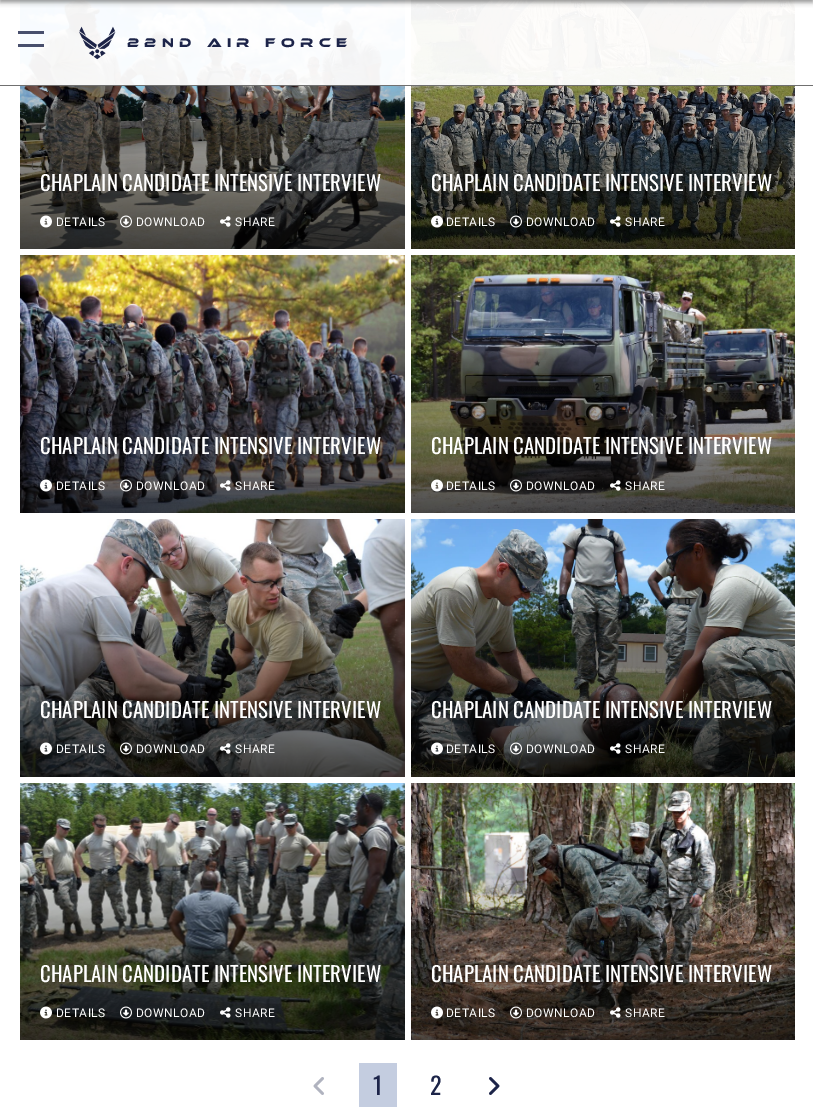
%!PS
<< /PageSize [813 1114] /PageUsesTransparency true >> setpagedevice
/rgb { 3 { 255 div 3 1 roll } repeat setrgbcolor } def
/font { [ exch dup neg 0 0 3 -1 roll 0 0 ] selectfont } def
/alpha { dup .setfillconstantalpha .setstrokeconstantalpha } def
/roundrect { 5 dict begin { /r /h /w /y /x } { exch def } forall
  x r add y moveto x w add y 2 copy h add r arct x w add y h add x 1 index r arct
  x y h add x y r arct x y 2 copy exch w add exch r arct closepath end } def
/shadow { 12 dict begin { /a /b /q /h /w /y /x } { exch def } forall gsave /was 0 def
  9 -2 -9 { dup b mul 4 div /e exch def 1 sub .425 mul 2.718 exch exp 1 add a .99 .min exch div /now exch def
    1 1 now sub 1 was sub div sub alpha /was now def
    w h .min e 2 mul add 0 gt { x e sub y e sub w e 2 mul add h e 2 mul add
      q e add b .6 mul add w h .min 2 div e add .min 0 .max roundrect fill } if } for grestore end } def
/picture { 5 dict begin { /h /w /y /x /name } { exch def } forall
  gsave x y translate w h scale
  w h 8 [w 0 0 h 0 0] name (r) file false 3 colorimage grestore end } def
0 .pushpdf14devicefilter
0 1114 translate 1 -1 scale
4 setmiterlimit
255 255 255 rgb
0 0 813 1114 rectfill
(img/2.rgb) 20 0 385 249 picture
(img/6.rgb) 411 0 384 249 picture
0.95 alpha
20 0 775 85 rectfill
1 alpha
0 0 0 rgb
0 -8 813 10 0 2.5 0.45 shadow
[
  [0 85 813 1 112 112 112]
] { aload pop rgb rectfill } forall
0.8 alpha
[
  [18 31 26 3 28 36 73]
  [18 44 26 3 28 36 73]
] { aload pop rgb rectfill } forall
1 alpha
(img/1.rgb) 79 26 37 34 picture
(img/3.rgb) 40 215 12 13 picture
(img/4.rgb) 120 215 12 13 picture
(img/5.rgb) 220 216 11 11 picture
(img/7.rgb) 431 215 12 13 picture
(img/8.rgb) 510 215 12 13 picture
(img/9.rgb) 610 216 11 11 picture
(img/10.rgb) 20 255 385 258 picture
(img/11.rgb) 40 479 12 13 picture
(img/12.rgb) 120 479 12 13 picture
(img/13.rgb) 220 480 11 11 picture
(img/14.rgb) 411 255 384 258 picture
(img/15.rgb) 431 479 12 13 picture
(img/16.rgb) 510 479 12 13 picture
(img/17.rgb) 610 480 11 11 picture
(img/18.rgb) 20 519 385 258 picture
(img/19.rgb) 40 742 12 13 picture
(img/20.rgb) 120 742 12 13 picture
(img/21.rgb) 220 743 11 11 picture
(img/22.rgb) 411 519 384 258 picture
(img/23.rgb) 431 742 12 13 picture
(img/24.rgb) 510 742 12 13 picture
(img/25.rgb) 610 743 11 11 picture
(img/26.rgb) 20 783 385 257 picture
(img/27.rgb) 40 1006 12 13 picture
(img/28.rgb) 120 1006 12 13 picture
(img/29.rgb) 220 1007 11 11 picture
(img/30.rgb) 411 783 384 257 picture
(img/31.rgb) 431 1006 12 13 picture
(img/32.rgb) 510 1006 12 13 picture
(img/33.rgb) 610 1007 11 11 picture
(img/34.rgb) 313 1077 11 18 picture
196 205 224 rgb
359 1063 38 44 rectfill
(img/35.rgb) 489 1077 11 18 picture
/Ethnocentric-Regular 13 font
28 36 73 rgb
127 47 moveto 5.25 0 (22nd Air Force) ashow
/Oswald-Regular 20.9 font
255 255 255 rgb
40 191 moveto (CHAPLAIN CANDIDATE INTENSIVE INTERVIEW) show
/Roboto-Regular 12 font
56 226 moveto 0.5 0 (DETAILS) ashow
136 226 moveto 0.5 0 (DOWNLOAD) ashow
235 226 moveto 0.5 0 (SHARE) ashow
/Oswald-Regular 20.9 font
431 191 moveto (CHAPLAIN CANDIDATE INTENSIVE INTERVIEW) show
/Roboto-Regular 12 font
446 226 moveto 0.5 0 (DETAILS) ashow
526 226 moveto 0.5 0 (DOWNLOAD) ashow
625 226 moveto 0.5 0 (SHARE) ashow
/Oswald-Regular 20.9 font
40 454 moveto (CHAPLAIN CANDIDATE INTENSIVE INTERVIEW) show
/Roboto-Regular 12 font
56 490 moveto 0.5 0 (DETAILS) ashow
136 490 moveto 0.5 0 (DOWNLOAD) ashow
235 490 moveto 0.5 0 (SHARE) ashow
/Oswald-Regular 20.9 font
431 454 moveto (CHAPLAIN CANDIDATE INTENSIVE INTERVIEW) show
/Roboto-Regular 12 font
446 490 moveto 0.5 0 (DETAILS) ashow
526 490 moveto 0.5 0 (DOWNLOAD) ashow
625 490 moveto 0.5 0 (SHARE) ashow
/Oswald-Regular 20.9 font
40 718 moveto (CHAPLAIN CANDIDATE INTENSIVE INTERVIEW) show
/Roboto-Regular 12 font
56 753 moveto 0.5 0 (DETAILS) ashow
136 753 moveto 0.5 0 (DOWNLOAD) ashow
235 753 moveto 0.5 0 (SHARE) ashow
/Oswald-Regular 20.9 font
431 718 moveto (CHAPLAIN CANDIDATE INTENSIVE INTERVIEW) show
/Roboto-Regular 12 font
446 753 moveto 0.5 0 (DETAILS) ashow
526 753 moveto 0.5 0 (DOWNLOAD) ashow
625 753 moveto 0.5 0 (SHARE) ashow
/Oswald-Regular 20.9 font
40 982 moveto (CHAPLAIN CANDIDATE INTENSIVE INTERVIEW) show
/Roboto-Regular 12 font
56 1017 moveto 0.5 0 (DETAILS) ashow
136 1017 moveto 0.5 0 (DOWNLOAD) ashow
235 1017 moveto 0.5 0 (SHARE) ashow
/Oswald-Regular 20.9 font
431 982 moveto (CHAPLAIN CANDIDATE INTENSIVE INTERVIEW) show
/Roboto-Regular 12 font
446 1017 moveto 0.5 0 (DETAILS) ashow
526 1017 moveto 0.5 0 (DOWNLOAD) ashow
625 1017 moveto 0.5 0 (SHARE) ashow
/Oswald-Regular 24 font
28 36 73 rgb
373 1095 moveto (1) show
430 1095 moveto (2) show
.poppdf14devicefilter showpage
